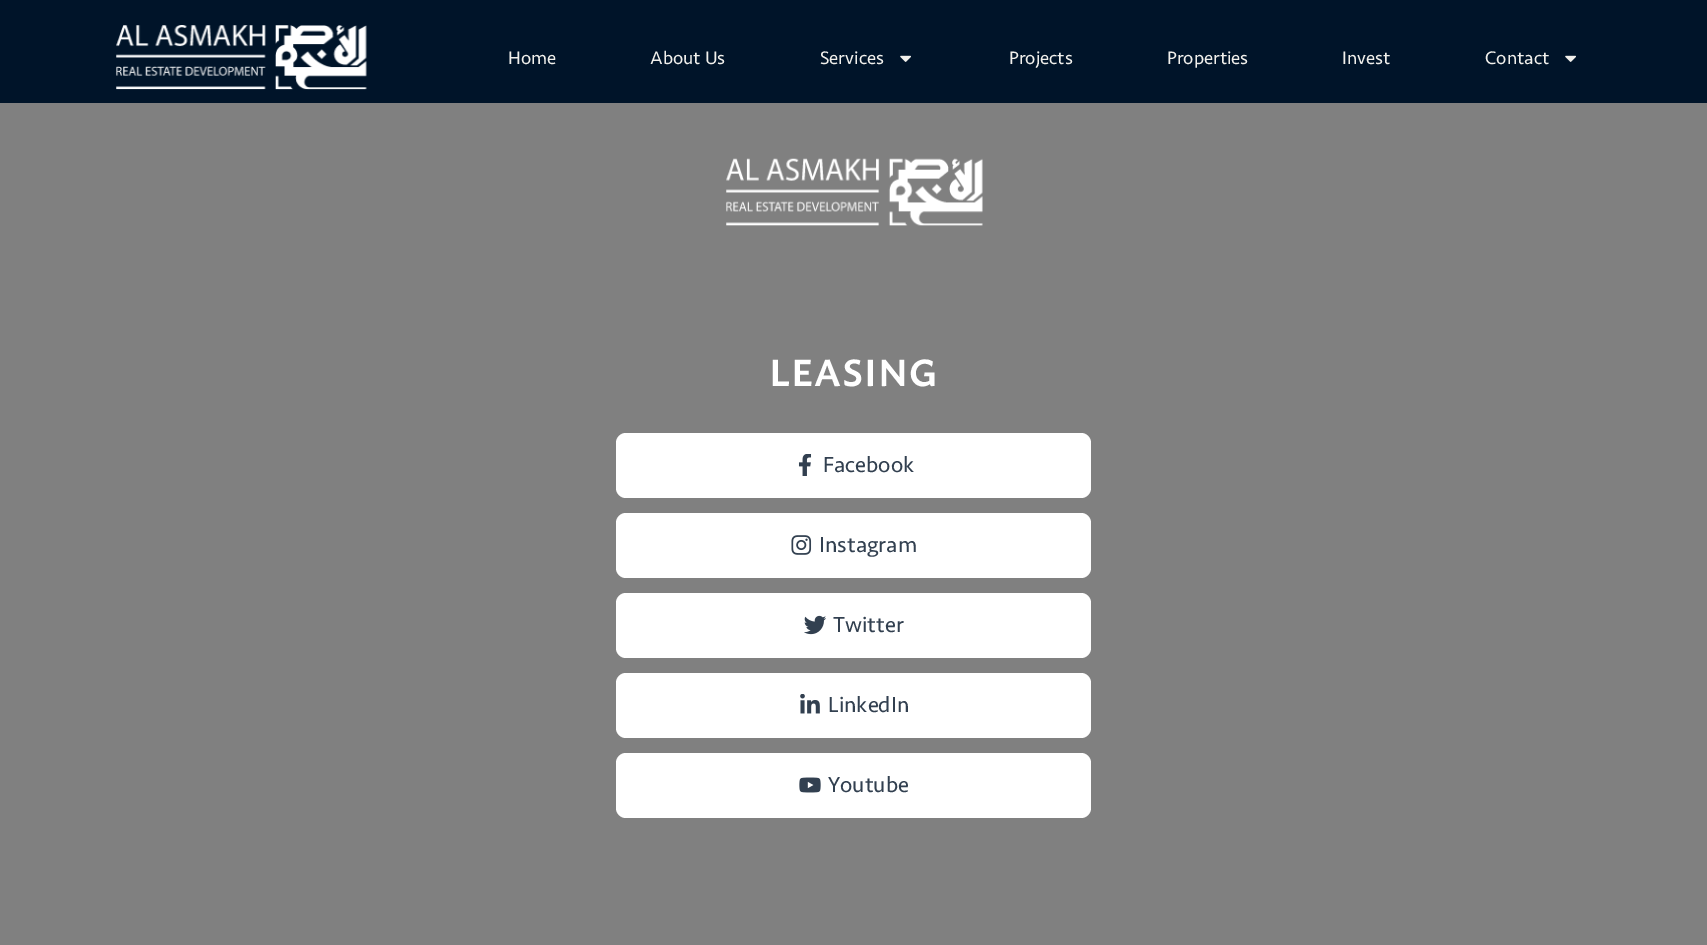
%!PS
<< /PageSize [1707 945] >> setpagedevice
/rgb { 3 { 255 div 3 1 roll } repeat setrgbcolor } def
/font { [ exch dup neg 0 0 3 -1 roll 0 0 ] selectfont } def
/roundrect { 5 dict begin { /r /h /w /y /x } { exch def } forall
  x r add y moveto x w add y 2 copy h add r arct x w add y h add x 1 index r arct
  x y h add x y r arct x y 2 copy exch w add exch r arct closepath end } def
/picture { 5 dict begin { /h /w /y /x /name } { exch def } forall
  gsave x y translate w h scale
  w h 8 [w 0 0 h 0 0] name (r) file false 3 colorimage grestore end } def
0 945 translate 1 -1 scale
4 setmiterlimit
128 128 128 rgb
0 0 1707 945 rectfill
0 20 41 rgb
0 0 1707 103 rectfill
(img/1.rgb) 116 25 251 65 picture
(img/2.rgb) 900 55 11 7 picture
(img/2.rgb) 1565 55 11 7 picture
(img/3.rgb) 726 158 257 68 picture
255 255 255 rgb
616 433 475 65 10 roundrect fill
(img/4.rgb) 798 454 14 22 picture
616 513 475 65 10 roundrect fill
(img/5.rgb) 791 535 21 20 picture
616 593 475 65 10 roundrect fill
(img/6.rgb) 804 615 22 20 picture
616 673 475 65 10 roundrect fill
(img/7.rgb) 800 694 20 20 picture
616 753 475 65 10 roundrect fill
(img/8.rgb) 799 777 22 16 picture
/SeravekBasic-Regular 18.75 font
241 240 236 rgb
[
  [(Home) 508 64]
  [(About Us) 650 64]
  [(Services) 820 64]
  [(Projects) 1009 64]
  [(Properties) 1167 64]
  [(Invest) 1342 64]
  [(Contact) 1485 64]
] { aload pop moveto show } forall
/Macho-SemiBold 37.5 font
255 255 255 rgb
769 386 moveto 1.25 0 (LEASING) ashow
/SeravekBasic-Regular 22.5 font
50 64 80 rgb
[
  [(Facebook) 823 472]
  [(Instagram) 819 552]
  [(Twitter) 833 632]
  [(LinkedIn) 828 712]
  [(Youtube) 828 792]
] { aload pop moveto show } forall
showpage
